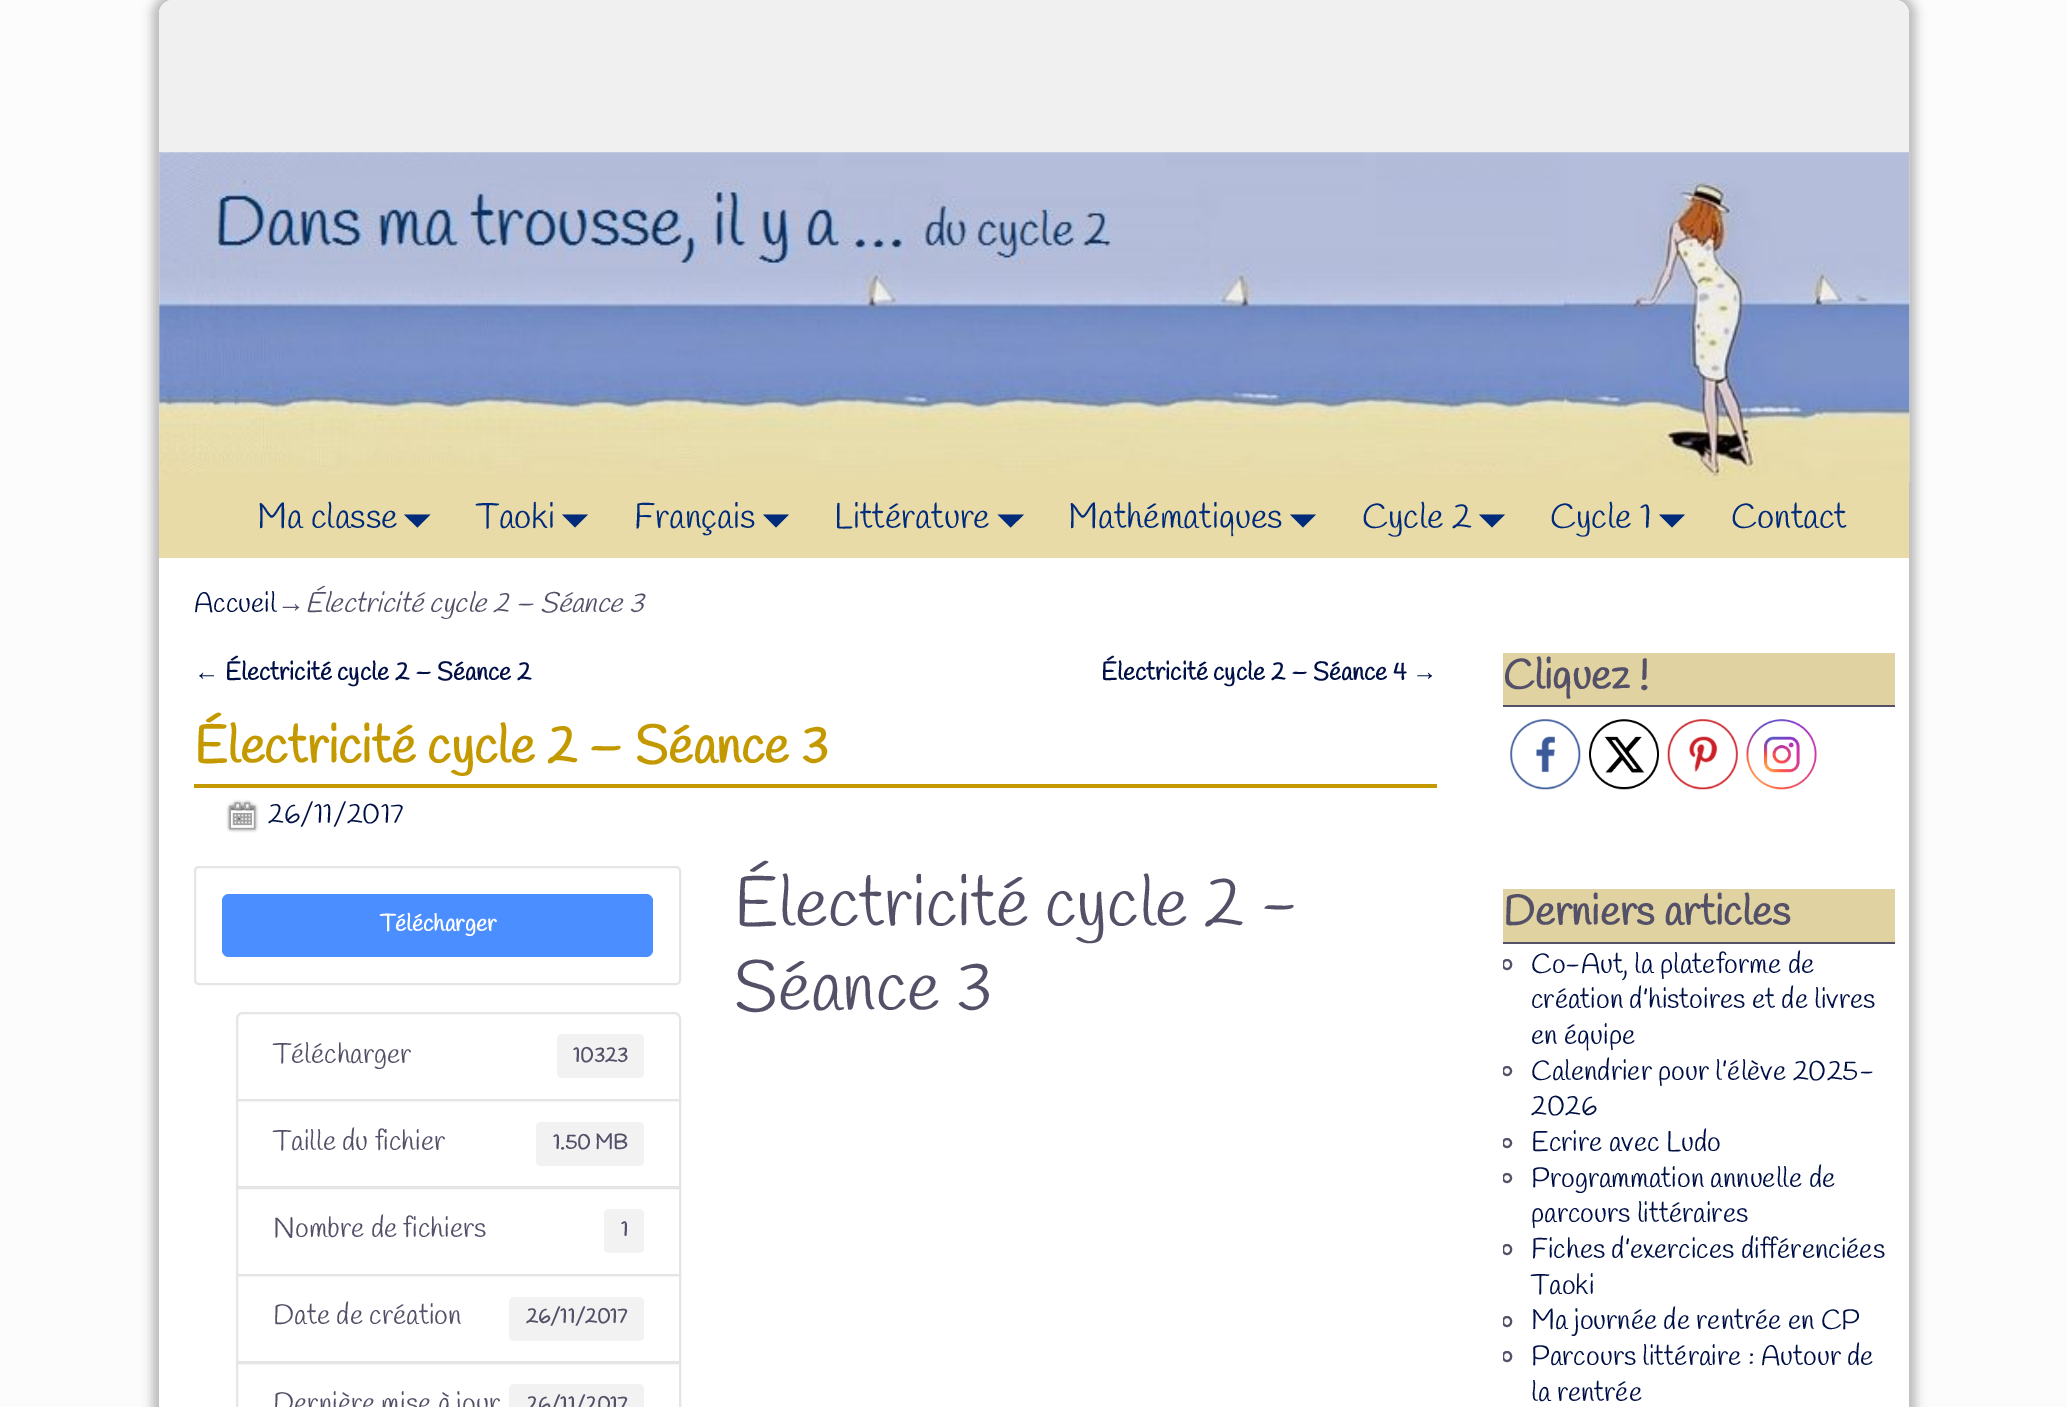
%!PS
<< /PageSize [2067 1407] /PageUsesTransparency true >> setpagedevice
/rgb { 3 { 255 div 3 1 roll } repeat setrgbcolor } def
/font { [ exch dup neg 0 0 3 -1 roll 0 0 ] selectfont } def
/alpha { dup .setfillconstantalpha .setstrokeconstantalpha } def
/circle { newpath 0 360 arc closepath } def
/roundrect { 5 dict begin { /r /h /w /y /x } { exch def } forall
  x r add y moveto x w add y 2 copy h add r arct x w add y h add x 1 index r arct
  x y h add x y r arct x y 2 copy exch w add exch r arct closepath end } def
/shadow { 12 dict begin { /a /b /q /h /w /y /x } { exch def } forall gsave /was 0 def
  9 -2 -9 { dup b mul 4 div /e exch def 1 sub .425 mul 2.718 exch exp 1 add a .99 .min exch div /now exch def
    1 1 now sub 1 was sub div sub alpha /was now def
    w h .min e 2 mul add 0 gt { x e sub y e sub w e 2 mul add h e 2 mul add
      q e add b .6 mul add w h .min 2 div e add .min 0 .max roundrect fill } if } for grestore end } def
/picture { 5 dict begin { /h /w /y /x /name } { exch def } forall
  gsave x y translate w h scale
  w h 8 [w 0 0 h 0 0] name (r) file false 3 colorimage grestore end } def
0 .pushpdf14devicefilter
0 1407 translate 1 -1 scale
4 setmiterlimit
252 252 252 rgb
0 0 2067 1407 rectfill
0 0 0 rgb
152 -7 1764 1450 21 5 0.25 shadow
255 255 255 rgb
159 0 1750 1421 14 roundrect fill
240 240 240 rgb
173 0 moveto 1895 0 lineto 1902.5 0 1909 6.5 1909 14 curveto 1909 558 lineto 159 558 lineto 159 14 lineto 159 6.5 165.5 0 173 0 curveto closepath fill
(img/1.rgb) 159 152 1751 330 picture
232 219 167 rgb
159 481 1750 77 rectfill
0 42 122 rgb
404 514.5 moveto 430.5 514.5 lineto 417.5 527.5 lineto closepath fill
562 514.5 moveto 588 514.5 lineto 575 527.5 lineto closepath fill
763 514.5 moveto 789 514.5 lineto 776 527.5 lineto closepath fill
997.5 514.5 moveto 1024 514.5 lineto 1010.5 527.5 lineto closepath fill
1290 514.5 moveto 1316 514.5 lineto 1303 527.5 lineto closepath fill
1479 514.5 moveto 1505 514.5 lineto 1492 527.5 lineto closepath fill
1659 514.5 moveto 1685 514.5 lineto 1672 527.5 lineto closepath fill
196 153 0 rgb
194 784 1243 4 rectfill
(img/2.rgb) 226 799 33 34 picture
229 229 229 rgb
2 setlinewidth
195 867 485 117 4 roundrect stroke
74 142 255 rgb
222 894 431 63 7 roundrect fill
229 229 229 rgb
243 1013 moveto 674 1013 lineto 677.5 1013 680 1015.5 680 1019 curveto 680 1100 lineto 237 1100 lineto 237 1019 lineto 237 1015.5 239.5 1013 243 1013 curveto closepath stroke
242 242 242 rgb
557 1034 87 44 5 roundrect fill
229 229 229 rgb
237 1100 443 87 rectstroke
242 242 242 rgb
536 1122 108 44 5 roundrect fill
229 229 229 rgb
237 1188 443 87 rectstroke
242 242 242 rgb
604 1209 40 44 5 roundrect fill
229 229 229 rgb
237 1275 443 87 rectstroke
242 242 242 rgb
509 1297 135 44 5 roundrect fill
229 229 229 rgb
237 1363 443 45 rectstroke
242 242 242 rgb
509 1384 135 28 5 roundrect fill
224 210 161 rgb
1503 653 392 52 rectfill
84 80 104 rgb
1503 705 392 2 rectfill
(img/3.rgb) 1510 719 71 71 picture
(img/4.rgb) 1589 719 70 71 picture
(img/5.rgb) 1667 719 71 71 picture
(img/6.rgb) 1746 719 71 71 picture
224 210 161 rgb
1503 889 392 53 rectfill
84 80 104 rgb
1503 942 392 2 rectfill
gsave
1503 889 392 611 rectclip
1503 960 8 9 4 roundrect stroke
1507 1071 4 circle stroke
1507 1143 4 circle stroke
1507 1178 4 circle stroke
1503 1245 8 9 4 roundrect stroke
1503 1317 8 9 4 roundrect stroke
1503 1352 8 9 4 roundrect stroke
grestore
/Handlee-Regular 35 font
0 42 122 rgb
[
  [(Ma classe) 257 528]
  [(Taoki) 476 528]
  [(Français) 634 528]
  [(Littérature) 834 528]
  [(Mathématiques) 1068 528]
  [(Cycle 2) 1362 528]
  [(Cycle 1) 1550 528]
  [(Contact) 1731 528]
] { aload pop moveto show } forall
/Handlee-Regular 28 font
0 16 71 rgb
194 612 moveto (Accueil) show
/LiberationSerif-Regular 28 font
84 80 104 rgb
277 612 moveto (→) show
/Handlee-Italic 28 font
305 612 moveto (Électricité cycle 2 – Séance 3) show
/LiberationSerif-Regular 25.25 font
0 16 71 rgb
194 680 moveto (←) show
/Handlee-Bold 25.25 font
225 680 moveto (Électricité cycle 2 – Séance 2) show
1101 680 moveto (Électricité cycle 2 – Séance 4) show
/LiberationSerif-Regular 25.25 font
1412 680 moveto (→) show
/Handlee-Bold 52.5 font
196 153 0 rgb
194 763 moveto (Électricité cycle 2 – Séance 3) show
/Handlee-Regular 28 font
0 16 71 rgb
268 823 moveto (26/11/2017) show
/Handlee-Bold 23.5 font
255 255 255 rgb
380 931 moveto (Télécharger) show
/Handlee-Regular 28 font
84 80 104 rgb
273 1063 moveto (Télécharger) show
/Handlee-Bold 21 font
573 1062 moveto (10323) show
/Handlee-Regular 28 font
273 1150 moveto (Taille du fichier) show
/Handlee-Bold 21 font
553 1149 moveto (1.50 MB) show
/Handlee-Regular 28 font
273 1237 moveto (Nombre de fichiers) show
/Handlee-Bold 21 font
621 1236 moveto (1) show
/Handlee-Regular 28 font
273 1324 moveto (Date de création) show
/Handlee-Bold 21 font
526 1323 moveto (26/11/2017) show
/Handlee-Regular 28 font
273 1412 moveto (Dernière mise à jour) show
/Handlee-Bold 21 font
526 1411 moveto (26/11/2017) show
/Handlee-Regular 70 font
734 926 moveto (Électricité cycle 2 -) show
734 1010 moveto (Séance 3) show
/Handlee-Bold 42 font
1503 689 moveto (Cliquez !) show
1503 925 moveto (Derniers articles) show
/Handlee-Regular 28 font
0 16 71 rgb
[
  [(Co-Aut, la plateforme de) 1531 973]
  [(création d’histoires et de livres) 1531 1008]
  [(en équipe) 1531 1044]
  [(Calendrier pour l’élève 2025-) 1531 1080]
  [(2026) 1531 1115]
  [(Ecrire avec Ludo) 1531 1151]
  [(Programmation annuelle de) 1531 1187]
  [(parcours littéraires) 1531 1222]
  [(Fiches d’exercices différenciées) 1531 1258]
  [(Taoki) 1531 1294]
  [(Ma journée de rentrée en CP) 1531 1329]
  [(Parcours littéraire : Autour de) 1531 1365]
  [(la rentrée) 1531 1401]
] { aload pop moveto show } forall
.poppdf14devicefilter showpage
